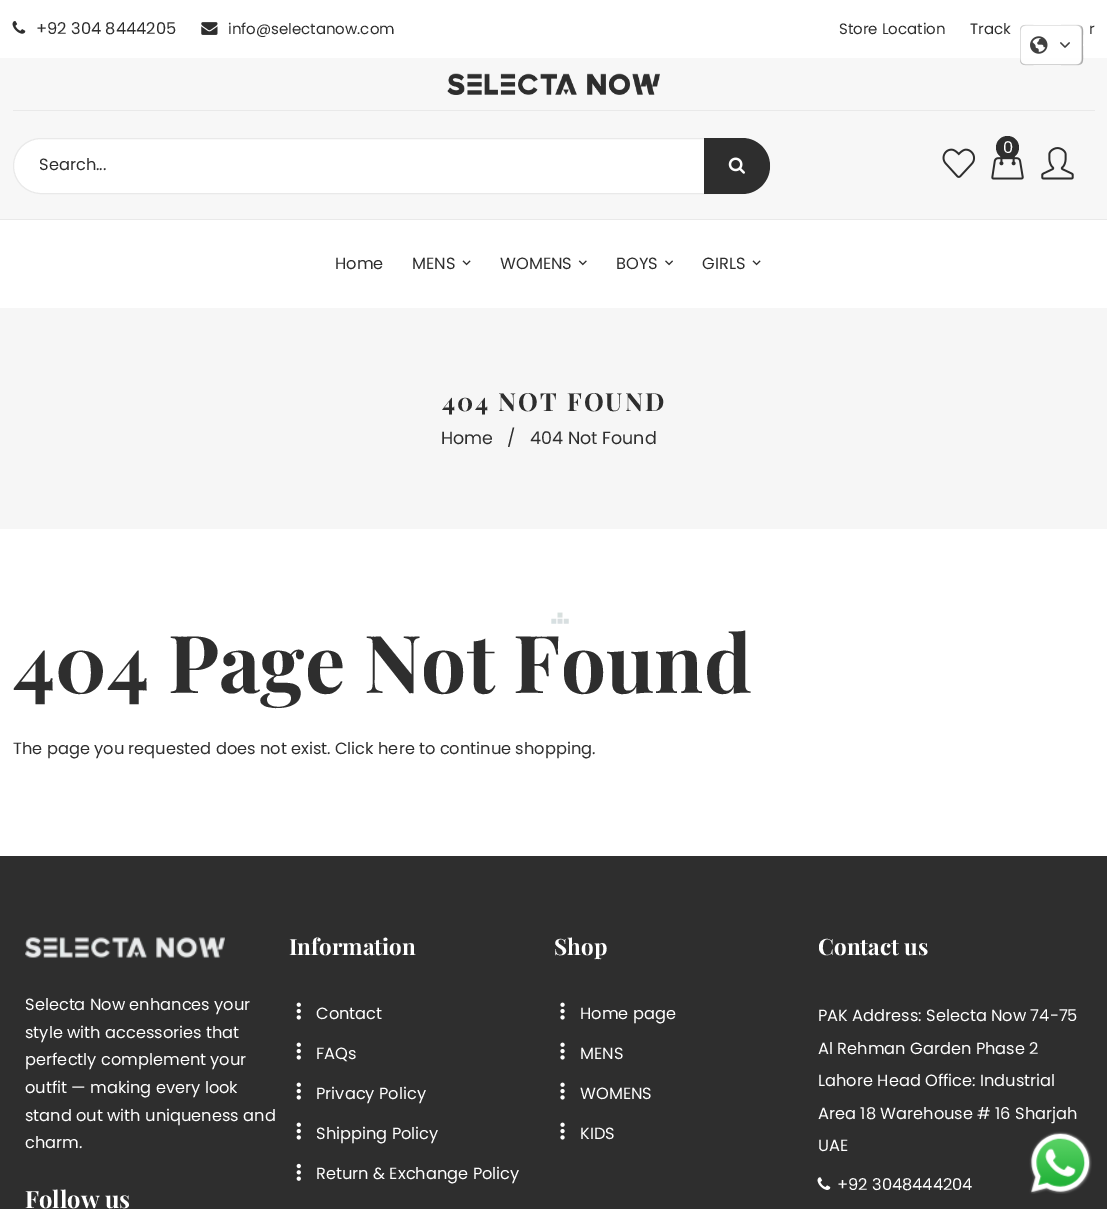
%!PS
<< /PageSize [1107 1209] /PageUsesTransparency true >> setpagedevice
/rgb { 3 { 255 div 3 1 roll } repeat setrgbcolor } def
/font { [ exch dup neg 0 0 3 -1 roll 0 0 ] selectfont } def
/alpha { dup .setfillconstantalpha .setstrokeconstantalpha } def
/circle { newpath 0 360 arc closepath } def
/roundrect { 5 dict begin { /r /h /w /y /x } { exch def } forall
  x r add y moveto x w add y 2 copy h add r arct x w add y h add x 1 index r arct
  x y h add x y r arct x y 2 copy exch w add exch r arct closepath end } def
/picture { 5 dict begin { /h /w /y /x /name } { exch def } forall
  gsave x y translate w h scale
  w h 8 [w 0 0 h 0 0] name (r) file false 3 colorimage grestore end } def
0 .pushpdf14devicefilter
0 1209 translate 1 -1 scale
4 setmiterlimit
255 255 255 rgb
0 0 1107 1209 rectfill
(img/1.rgb) 12 21 14 13 picture
(img/2.rgb) 201 22 17 13 picture
247 247 247 rgb
0 58 1107 161 rectfill
233 233 233 rgb
13 110 1082 1 rectfill
(img/3.rgb) 447 73 213 22 picture
(img/4.rgb) 942 148 34 30 picture
(img/5.rgb) 991 156 33 24 picture
46 46 46 rgb
1007.5 147.5 11.5 circle fill
(img/6.rgb) 1041 147 33 33 picture
255 255 255 rgb
13.5 138.5 756 55 27.5 roundrect gsave fill grestore
233 233 233 rgb
stroke
46 46 46 rgb
704 138 moveto 742 138 lineto 757.5 138 770 150.5 770 166 curveto 770 181.5 757.5 194 742 194 curveto 704 194 lineto closepath fill
(img/7.rgb) 728 157 17 17 picture
233 233 233 rgb
0 219 1107 1 rectfill
(img/8.rgb) 462 260 9 6 picture
(img/9.rgb) 578 260 9 6 picture
(img/10.rgb) 665 260 8 6 picture
(img/8.rgb) 752 260 9 6 picture
0.9 alpha
255 255 255 rgb
1020 25 63 40 5 roundrect fill
0.5 alpha
204 204 204 rgb
1025 26 moveto 1078 26 lineto 1080 26 1082 28 1082 31 curveto 1082 61 lineto 1081 64 lineto 1084 62 1083 58 1083 55 curveto 1083 45 lineto 1083 21 1086 25 1060 25 curveto 1034 25 lineto 1028 25 1020 23 1020 31 curveto 1020 28 1022 26 1025 26 curveto closepath fill
0.17 alpha
0 0 0 rgb
1020 59 moveto 1020 67 1028 65 1034 65 curveto 1060 65 lineto 1086 65 1083 69 1083 45 curveto 1083 35 lineto 1083 32 1084 28 1081 26 curveto 1082 29 lineto 1082 59 lineto 1082 62 1080 64 1078 64 curveto 1025 64 lineto 1022 64 1020 62 1020 59 curveto closepath fill
0.13 alpha
1076 65 moveto 1083 65 1083 62 1083 55 curveto 1083 35 lineto 1083 28 1083 25 1076 25 curveto 1079 25 1081 27 1081 30 curveto 1081 60 lineto 1081 63 1079 65 1076 65 curveto closepath 1025 25 moveto 1022 25 1020 27 1020 30 curveto 1020 60 lineto 1020 63 1022 65 1025 65 curveto 1026 65 lineto 1023 65 1021 63 1021 60 curveto 1021 30 lineto 1021 27 1023 25 1026 25 curveto closepath fill
1 alpha
(img/11.rgb) 1030 36 18 18 picture
(img/12.rgb) 1060 42 10 6 picture
246 246 246 rgb
0 308 1107 221 rectfill
(img/13.rgb) 551 612 18 12 picture
46 46 46 rgb
0 856 1107 353 rectfill
(img/14.rgb) 25 937 200 21 picture
(img/15.rgb) 296 1002 5 18 picture
(img/15.rgb) 296 1042 5 18 picture
(img/15.rgb) 296 1082 5 18 picture
(img/15.rgb) 296 1122 5 18 picture
(img/16.rgb) 296 1163 5 18 picture
(img/17.rgb) 560 1002 5 18 picture
(img/17.rgb) 560 1042 5 18 picture
(img/17.rgb) 560 1082 5 18 picture
(img/17.rgb) 560 1122 5 18 picture
(img/18.rgb) 817 1177 14 13 picture
(img/19.rgb) 1029 1131 63 63 picture
/Poppins-Regular 16.25 font
36 34 moveto (+92 304 8444205) show
/Poppins-Regular 15 font
[
  [(info@selectanow.com) 228 34]
  [(Store Location) 839 34]
  [(Track) 970 34]
  [(r) 1089 34]
] { aload pop moveto show } forall
/Poppins-Regular 16.25 font
255 255 255 rgb
1003 153 moveto (0) show
46 46 46 rgb
[
  [(Search...) 39 170]
  [(Home) 335 269]
  [(MENS) 412 269]
  [(WOMENS) 500 269]
  [(BOYS) 616 269]
  [(GIRLS) 702 269]
] { aload pop moveto show } forall
/PlayfairDisplay-Bold 25 font
442 411 moveto 2 0 (404 NOT FOUND) ashow
/Poppins-Regular 17.5 font
[
  [(Home) 441 444]
  [(/) 507 444]
  [(404 Not Found) 530 444]
] { aload pop moveto show } forall
/PlayfairDisplay-Bold 80 font
13 693 moveto (404 Page Not Found) show
/Poppins-Regular 16.25 font
13 754 moveto (The page you requested does not exist. Click here to continue shopping.) show
255 255 255 rgb
[
  [(Selecta Now enhances your) 25 1010]
  [(style with accessories that) 25 1038]
  [(perfectly complement your) 25 1065]
  [(outfit — making every look) 25 1093]
  [(stand out with uniqueness and) 25 1121]
  [(charm.) 25 1148]
] { aload pop moveto show } forall
/PlayfairDisplay-Bold 23.75 font
25 1208 moveto (Follow us) show
/PlayfairDisplay-Bold 22.5 font
289 955 moveto (Information) show
/Poppins-Regular 16.25 font
[
  [(Contact) 316 1019]
  [(FAQs) 316 1059]
  [(Privacy Policy) 316 1099]
  [(Shipping Policy) 316 1139]
  [(Return & Exchange Policy) 316 1179]
] { aload pop moveto show } forall
/PlayfairDisplay-Bold 22.5 font
554 955 moveto (Shop) show
/Poppins-Regular 16.25 font
[
  [(Home page) 580 1019]
  [(MENS) 580 1059]
  [(WOMENS) 580 1099]
  [(KIDS) 580 1139]
] { aload pop moveto show } forall
/PlayfairDisplay-Bold 22.5 font
818 955 moveto (Contact us) show
/Poppins-Regular 16.25 font
[
  [(PAK Address: Selecta Now 74-75) 818 1021]
  [(Al Rehman Garden Phase 2) 818 1054]
  [(Lahore Head Office: Industrial) 818 1086]
  [(Area 18 Warehouse # 16 Sharjah) 818 1119]
  [(UAE) 818 1151]
  [(+92 3048444204) 837 1190]
] { aload pop moveto show } forall
.poppdf14devicefilter showpage
